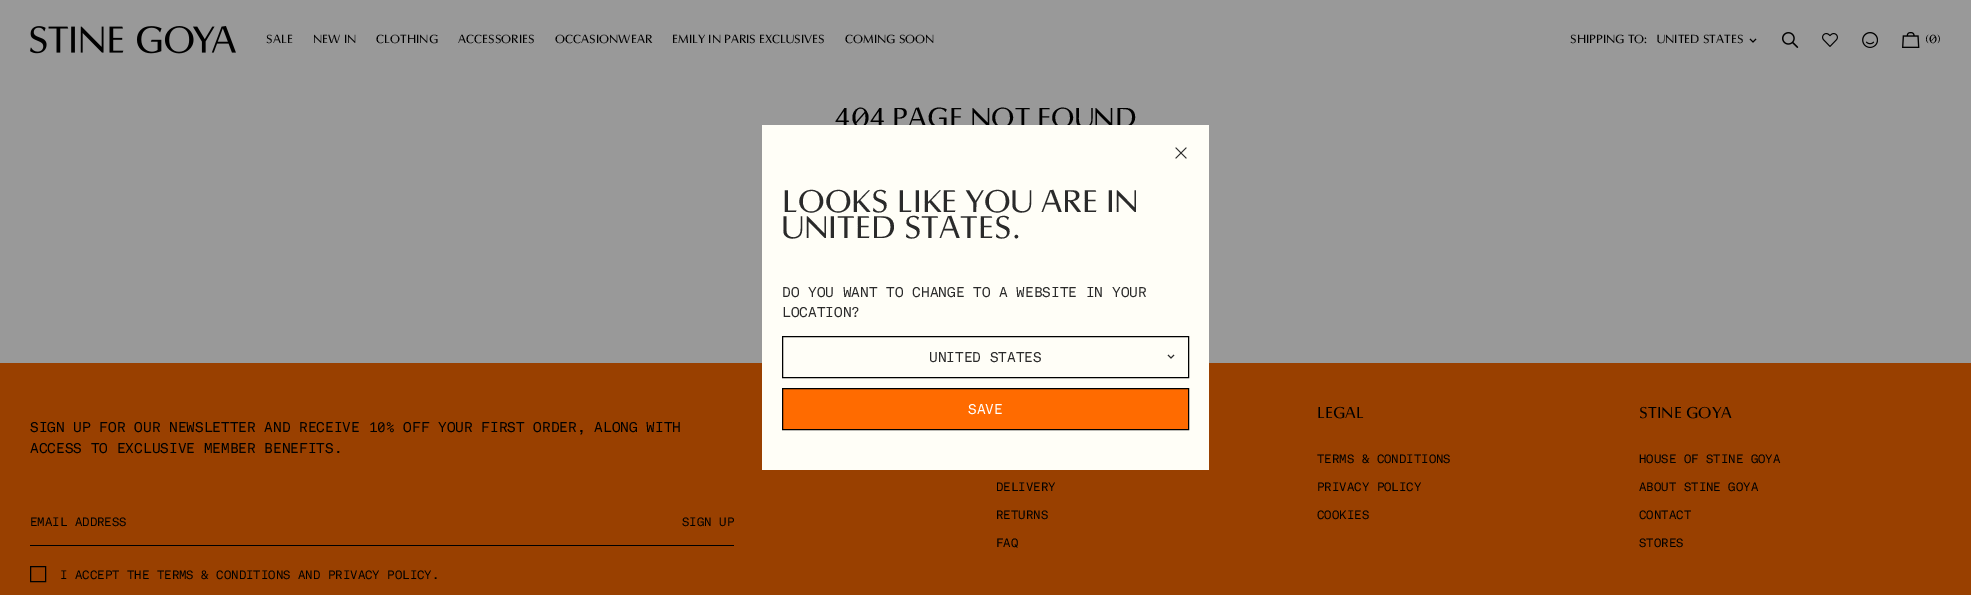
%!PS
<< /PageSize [1971 595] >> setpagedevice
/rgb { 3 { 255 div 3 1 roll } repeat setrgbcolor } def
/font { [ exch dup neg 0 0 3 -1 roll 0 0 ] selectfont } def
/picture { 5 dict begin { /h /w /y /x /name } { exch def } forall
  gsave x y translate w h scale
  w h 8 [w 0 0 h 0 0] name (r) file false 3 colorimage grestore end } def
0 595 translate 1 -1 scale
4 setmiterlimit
153 153 153 rgb
0 0 1971 595 rectfill
(img/1.rgb) 30 26 206 28 picture
0 0 0 rgb
1756 39 moveto 1753 42 lineto 1750 39 lineto stroke
(img/2.rgb) 1782 32 17 16 picture
(img/3.rgb) 1822 33 16 14 picture
(img/4.rgb) 1862 32 16 16 picture
(img/5.rgb) 1902 32 18 16 picture
153 64 0 rgb
0 363 1971 232 rectfill
0 0 0 rgb
30 545 704 1 rectfill
30.5 566.5 15 15 rectstroke
/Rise-Regular 12 font
[
  [(SALE) 266 43]
  [(NEW IN) 313 43]
  [(CLOTHING) 376 43]
  [(ACCESSORIES) 458 43]
  [(OCCASIONWEAR) 555 43]
  [(EMILY IN PARIS EXCLUSIVES) 672 43]
  [(COMING SOON) 845 43]
  [(SHIPPING TO:) 1570 43]
  [(UNITED STATES) 1657 43]
  [(\(0\)) 1925 43]
] { aload pop moveto show } forall
/Rise-Regular 28 font
835 127 moveto (404 PAGE NOT FOUND) show
255 254 247 rgb
762 125 447 345 rectfill
255 107 0 rgb
782.5 388.5 moveto 1188.5 388.5 lineto 1188.5 429.5 lineto 782.5 429.5 lineto closepath gsave fill grestore
0 0 0 rgb
stroke
/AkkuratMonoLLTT-Regular 14 font
255 255 255 rgb
968 414 moveto (SAVE) show
(img/6.rgb) 1175 147 12 12 picture
0 0 0 rgb
782.5 336.5 406 41 rectstroke
42 42 42 rgb
1174 355 moveto 1171 358 lineto 1168 355 lineto stroke
[
  [(UNITED STATES) 929 362]
  [(LOCATION?) 782 317]
  [(DO YOU WANT TO CHANGE TO A WEBSITE IN YOUR) 782 297]
] { aload pop moveto show } forall
/Rise-Regular 32 font
782 238 moveto (UNITED STATES.) show
782 212 moveto (LOOKS LIKE YOU ARE IN) show
/AkkuratMonoLLTT-Regular 14 font
0 0 0 rgb
30 432 moveto (SIGN UP FOR OUR NEWSLETTER AND RECEIVE 10% OFF YOUR FIRST ORDER, ALONG WITH) show
30 453 moveto (ACCESS TO EXCLUSIVE MEMBER BENEFITS.) show
/AkkuratMonoLLTT-Regular 12 font
[
  [(EMAIL ADDRESS) 30 526]
  [(SIGN UP) 682 526]
  [(I ACCEPT THE TERMS & CONDITIONS AND PRIVACY POLICY.) 60 579]
  [(DELIVERY) 996 491]
  [(RETURNS) 996 519]
  [(FAQ) 996 547]
] { aload pop moveto show } forall
/Rise-Regular 16 font
1317 418 moveto (LEGAL) show
/AkkuratMonoLLTT-Regular 12 font
[
  [(TERMS & CONDITIONS) 1317 463]
  [(PRIVACY POLICY) 1317 491]
  [(COOKIES) 1317 519]
] { aload pop moveto show } forall
/Rise-Regular 16 font
1639 418 moveto (STINE GOYA) show
/AkkuratMonoLLTT-Regular 12 font
[
  [(HOUSE OF STINE GOYA) 1639 463]
  [(ABOUT STINE GOYA) 1639 491]
  [(CONTACT) 1639 519]
  [(STORES) 1639 547]
] { aload pop moveto show } forall
showpage
